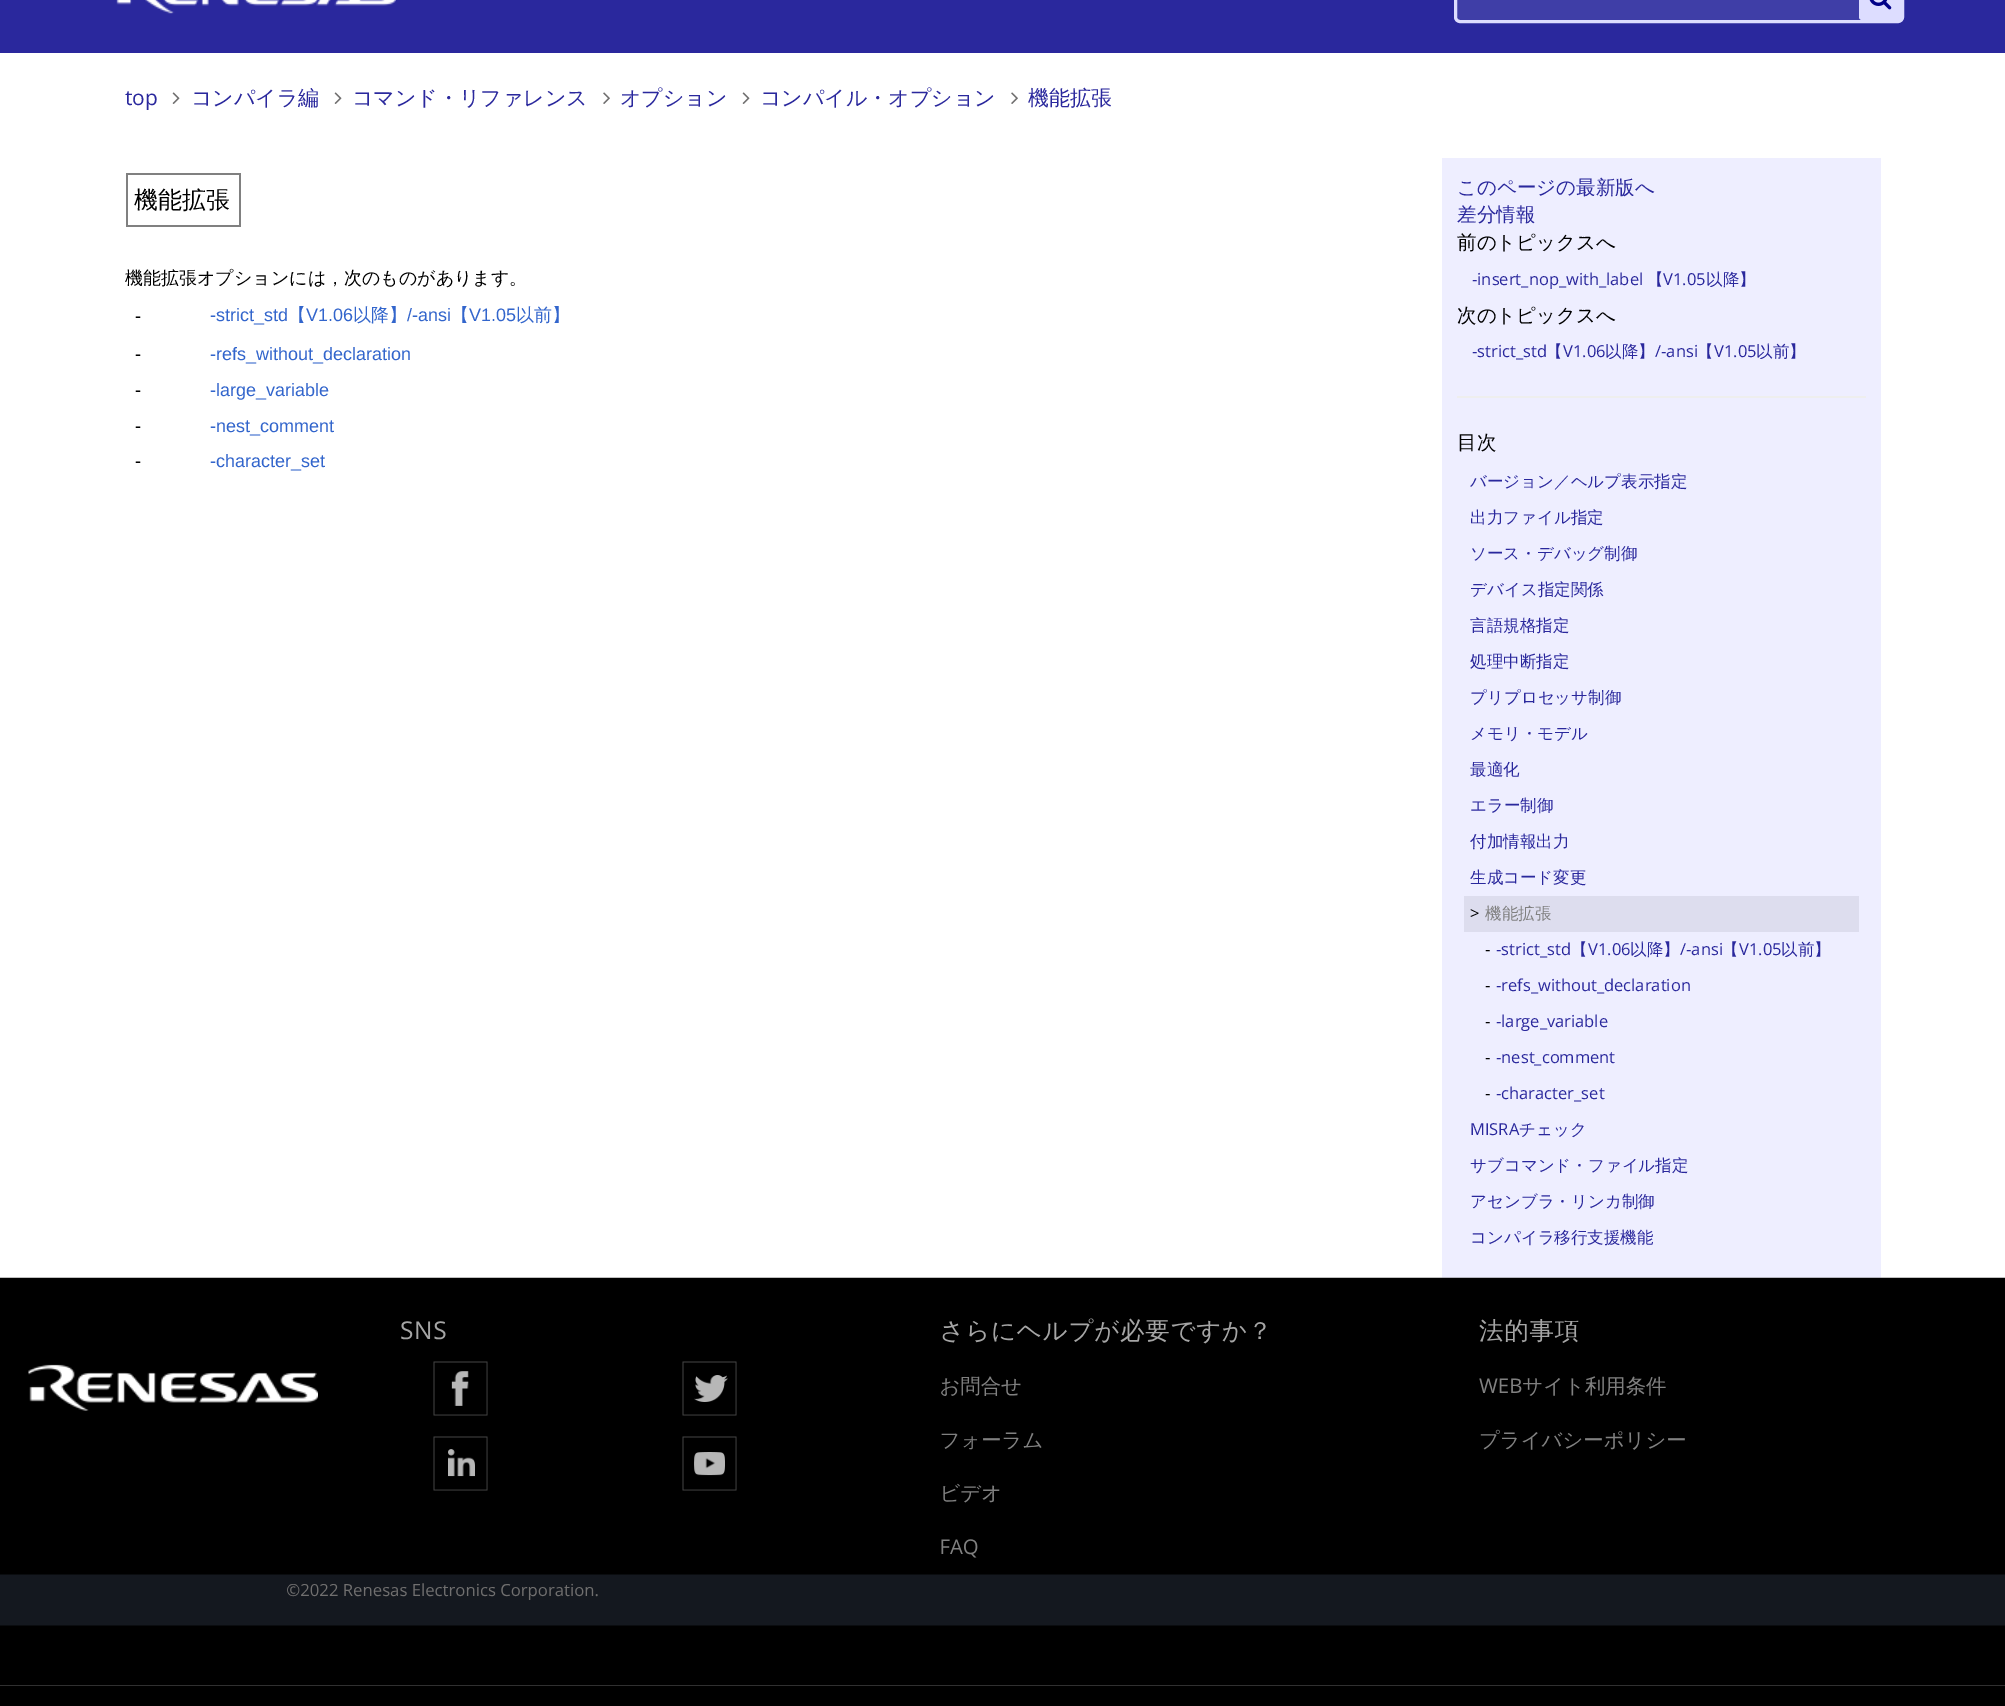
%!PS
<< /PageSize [2005 1706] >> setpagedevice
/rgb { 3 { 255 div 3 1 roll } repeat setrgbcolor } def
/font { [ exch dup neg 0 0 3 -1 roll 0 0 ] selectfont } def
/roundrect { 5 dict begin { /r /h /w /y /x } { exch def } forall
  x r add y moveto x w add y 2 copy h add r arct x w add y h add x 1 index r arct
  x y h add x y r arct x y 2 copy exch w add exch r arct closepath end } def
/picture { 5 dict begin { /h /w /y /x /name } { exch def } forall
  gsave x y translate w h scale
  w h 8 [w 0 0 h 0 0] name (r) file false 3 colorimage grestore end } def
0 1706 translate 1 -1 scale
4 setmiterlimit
255 255 255 rgb
0 0 2005 1706 rectfill
42 40 157 rgb
0 0 2005 53 rectfill
(img/1.rgb) 116 0 280 14 picture
63 62 167 rgb
1455.5 -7.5 447 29 4.5 roundrect gsave fill grestore
221 221 255 rgb
3 setlinewidth
stroke
1859 -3 45 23 3 roundrect fill
(img/2.rgb) 1869 0 23 10 picture
(img/3.rgb) 172 92 8 12 picture
(img/3.rgb) 334 92 8 12 picture
(img/4.rgb) 603 92 7 12 picture
(img/3.rgb) 742 92 8 12 picture
(img/4.rgb) 1011 92 7 12 picture
[
  [126 173 114 2 128 128 128]
  [239 173 2 54 128 128 128]
  [126 225 114 2 128 128 128]
  [126 173 2 54 128 128 128]
  [1442 158 439 1120 238 238 255]
  [1457 396 409 2 238 238 238]
  [1464 896 395 36 221 221 238]
  [0 1685 2005 21 0 0 0]
] { aload pop rgb rectfill } forall
(img/5.rgb) 0 1277 2005 409 picture
/OpenSans-Regular 21 font
42 40 157 rgb
125 105 moveto (top) show
/WenQuanYiZenHei-Medium 21 font
[
  [(コンパイラ編) 191 105]
  [(コマンド・リファレンス) 352 105]
  [(オプション) 620 105]
  [(コンパイル・オプション) 760 105]
  [(機能拡張) 1028 105]
] { aload pop moveto show } forall
/WenQuanYiZenHei-Medium 24 font
0 0 0 rgb
134 208 moveto (機能拡張) show
/WenQuanYiZenHei-Medium 18 font
125 284 moveto (機能拡張オプションには，次のものがあります。) show
/LiberationSans-Regular 18 font
135 322 moveto (-) show
50 101 204 rgb
210 321 moveto (-strict_std) show
/WenQuanYiZenHei-Medium 18 font
288 321 moveto (【) show
/LiberationSans-Regular 18 font
306 321 moveto (V1.06) show
/WenQuanYiZenHei-Medium 18 font
353 321 moveto (以降】) show
/LiberationSans-Regular 18 font
407 321 moveto (/-ansi) show
/WenQuanYiZenHei-Medium 18 font
451 321 moveto (【) show
/LiberationSans-Regular 18 font
469 321 moveto (V1.05) show
/WenQuanYiZenHei-Medium 18 font
516 321 moveto (以前】) show
/LiberationSans-Regular 18 font
0 0 0 rgb
135 360 moveto (-) show
50 101 204 rgb
210 360 moveto (-refs_without_declaration) show
0 0 0 rgb
135 396 moveto (-) show
50 101 204 rgb
210 396 moveto (-large_variable) show
0 0 0 rgb
135 432 moveto (-) show
50 101 204 rgb
210 432 moveto (-nest_comment) show
0 0 0 rgb
135 467 moveto (-) show
50 101 204 rgb
210 467 moveto (-character_set) show
/WenQuanYiZenHei-Medium 19.5 font
42 40 157 rgb
1457 194 moveto (このページの最新版へ) show
1457 221 moveto (差分情報) show
0 0 0 rgb
1457 249 moveto (前のトピックスへ) show
/OpenSans-Regular 16.5 font
42 40 157 rgb
1472 285 moveto (-insert_nop_with_label) show
/WenQuanYiZenHei-Medium 16.5 font
1647 285 moveto (【) show
/OpenSans-Regular 16.5 font
1663 285 moveto (V1.05) show
/WenQuanYiZenHei-Medium 16.5 font
1706 285 moveto (以降】) show
/WenQuanYiZenHei-Medium 19.5 font
0 0 0 rgb
1457 322 moveto (次のトピックスへ) show
/OpenSans-Regular 16.5 font
42 40 157 rgb
1472 357 moveto (-strict_std) show
/WenQuanYiZenHei-Medium 16.5 font
1546 357 moveto (【) show
/OpenSans-Regular 16.5 font
1563 357 moveto (V1.06) show
/WenQuanYiZenHei-Medium 16.5 font
1605 357 moveto (以降】) show
/OpenSans-Regular 16.5 font
1655 357 moveto (/-ansi) show
/WenQuanYiZenHei-Medium 16.5 font
1697 357 moveto (【) show
/OpenSans-Regular 16.5 font
1714 357 moveto (V1.05) show
/WenQuanYiZenHei-Medium 16.5 font
1756 357 moveto (以前】) show
/WenQuanYiZenHei-Medium 19.5 font
0 0 0 rgb
1457 449 moveto (目次) show
/WenQuanYiZenHei-Medium 16.5 font
42 40 157 rgb
[
  [(バージョン／ヘルプ表示指定) 1470 487]
  [(出力ファイル指定) 1470 523]
  [(ソース・デバッグ制御) 1470 559]
  [(デバイス指定関係) 1470 595]
  [(言語規格指定) 1470 631]
  [(処理中断指定) 1470 667]
  [(プリプロセッサ制御) 1470 703]
  [(メモリ・モデル) 1470 739]
  [(最適化) 1470 775]
  [(エラー制御) 1470 811]
  [(付加情報出力) 1470 847]
  [(生成コード変更) 1470 883]
] { aload pop moveto show } forall
/OpenSans-Regular 16.5 font
0 0 0 rgb
1470 919 moveto (>) show
/WenQuanYiZenHei-Medium 16.5 font
128 128 128 rgb
1485 919 moveto (機能拡張) show
/OpenSans-Regular 16.5 font
0 0 0 rgb
1485 955 moveto (-) show
42 40 157 rgb
1496 955 moveto (-strict_std) show
/WenQuanYiZenHei-Medium 16.5 font
1571 955 moveto (【) show
/OpenSans-Regular 16.5 font
1588 955 moveto (V1.06) show
/WenQuanYiZenHei-Medium 16.5 font
1630 955 moveto (以降】) show
/OpenSans-Regular 16.5 font
1680 955 moveto (/-ansi) show
/WenQuanYiZenHei-Medium 16.5 font
1722 955 moveto (【) show
/OpenSans-Regular 16.5 font
1739 955 moveto (V1.05) show
/WenQuanYiZenHei-Medium 16.5 font
1781 955 moveto (以前】) show
/OpenSans-Regular 16.5 font
0 0 0 rgb
1485 991 moveto (-) show
42 40 157 rgb
1496 991 moveto (-refs_without_declaration) show
0 0 0 rgb
1485 1027 moveto (-) show
42 40 157 rgb
1496 1027 moveto (-large_variable) show
0 0 0 rgb
1485 1063 moveto (-) show
42 40 157 rgb
1496 1063 moveto (-nest_comment) show
0 0 0 rgb
1485 1099 moveto (-) show
42 40 157 rgb
1496 1099 moveto (-character_set) show
1470 1135 moveto (MISRA) show
/WenQuanYiZenHei-Medium 16.5 font
[
  [(チェック) 1519 1135]
  [(サブコマンド・ファイル指定) 1470 1171]
  [(アセンブラ・リンカ制御) 1470 1207]
  [(コンパイラ移行支援機能) 1470 1243]
] { aload pop moveto show } forall
showpage
